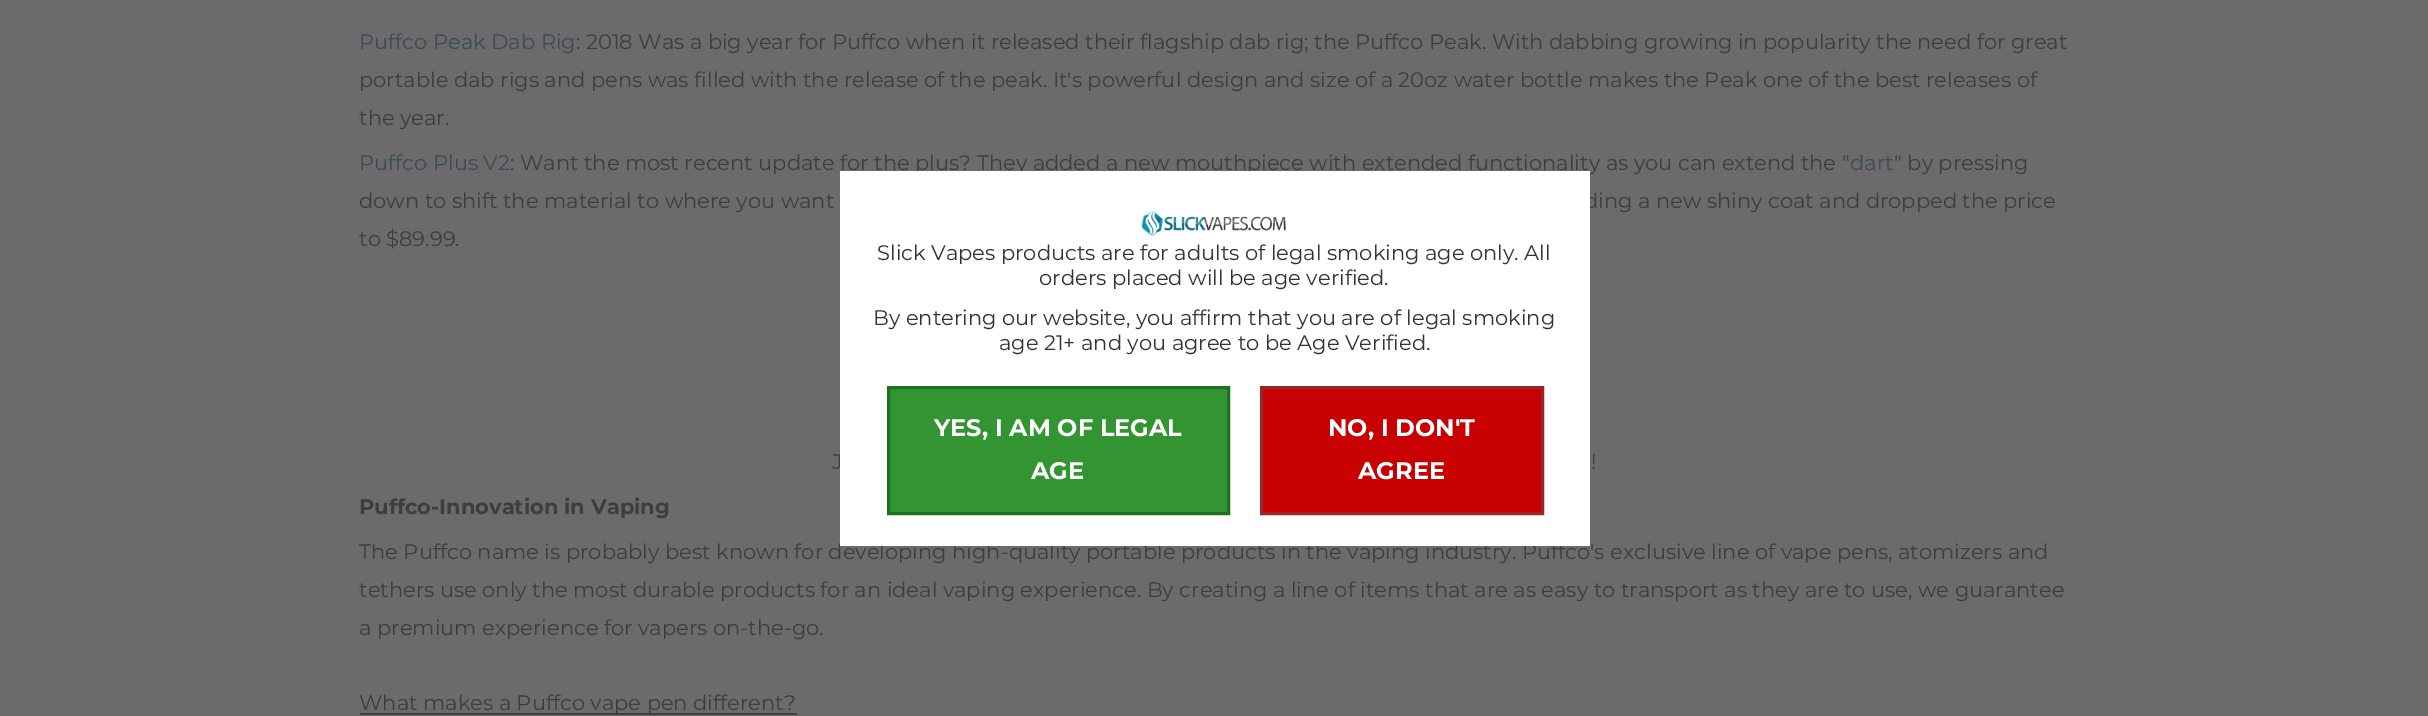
%!PS
<< /PageSize [2428 716] >> setpagedevice
/rgb { 3 { 255 div 3 1 roll } repeat setrgbcolor } def
/font { [ exch dup neg 0 0 3 -1 roll 0 0 ] selectfont } def
/picture { 5 dict begin { /h /w /y /x /name } { exch def } forall
  gsave x y translate w h scale
  w h 8 [w 0 0 h 0 0] name (r) file false 3 colorimage grestore end } def
0 716 translate 1 -1 scale
4 setmiterlimit
108 106 106 rgb
0 0 2428 716 rectfill
63 61 61 rgb
360 713 437 2 rectfill
/Montserrat-Regular 21 font
57 77 89 rgb
359 49 moveto (Puffco Peak Dab Rig) show
63 61 61 rgb
[
  [(: 2018 Was a big year for Puffco when it released their flagship dab rig; the Puffco Peak. With dabbing growing in popularity the need for great) 576 49]
  [(portable dab rigs and pens was filled with the release of the peak. It's powerful design and size of a 20oz water bottle makes the Peak one of the best releases of) 359 87]
  [(the year.) 359 125]
] { aload pop moveto show } forall
57 77 89 rgb
359 170 moveto (Puffco Plus V2) show
63 61 61 rgb
510 170 moveto (: Want the most recent update for the plus? They added a new mouthpiece with extended functionality as you can extend the ") show
57 77 89 rgb
1850 170 moveto (dart) show
63 61 61 rgb
[
  [(" by pressing) 1894 170]
  [(down to shift the material to where you want) 359 208]
  [(ding a new shiny coat and dropped the price) 1584 208]
  [(to $89.99.) 359 246]
  [(J) 832 469]
  [(!) 1591 469]
] { aload pop moveto show } forall
/Montserrat-Bold 21 font
359 514 moveto (Puffco-Innovation in Vaping) show
/Montserrat-Regular 21 font
[
  [(The Puffco name is probably best known for developing high-quality portable products in the vaping industry. Puffco's exclusive line of vape pens, atomizers and) 359 559]
  [(tethers use only the most durable products for an ideal vaping experience. By creating a line of items that are as easy to transport as they are to use, we guarantee) 359 597]
  [(a premium experience for vapers on-the-go.) 359 635]
  [(What makes a Puffco vape pen different?) 359 710]
] { aload pop moveto show } forall
255 255 255 rgb
840 171 750 375 rectfill
(img/1.rgb) 1141 211 145 25 picture
51 51 51 rgb
[
  [(Slick Vapes products are for adults of legal smoking age only. All) 877 260]
  [(orders placed will be age verified.) 1039 285]
  [(By entering our website, you affirm that you are of legal smoking) 873 325]
  [(age 21+ and you agree to be Age Verified.) 999 350]
] { aload pop moveto show } forall
51 149 50 rgb
888.5 387.5 moveto 1228.5 387.5 lineto 1228.5 513.5 lineto 888.5 513.5 lineto closepath gsave fill grestore
30 113 29 rgb
3 setlinewidth
stroke
/Montserrat-Bold 24 font
255 255 255 rgb
934 436 moveto (YES, I AM OF LEGAL) show
1031 479 moveto (AGE) show
200 0 2 rgb
1261.5 387.5 moveto 1542.5 387.5 lineto 1542.5 513.5 lineto 1261.5 513.5 lineto closepath gsave fill grestore
150 38 39 rgb
stroke
255 255 255 rgb
1328 436 moveto (NO, I DON'T) show
1358 479 moveto (AGREE) show
showpage
